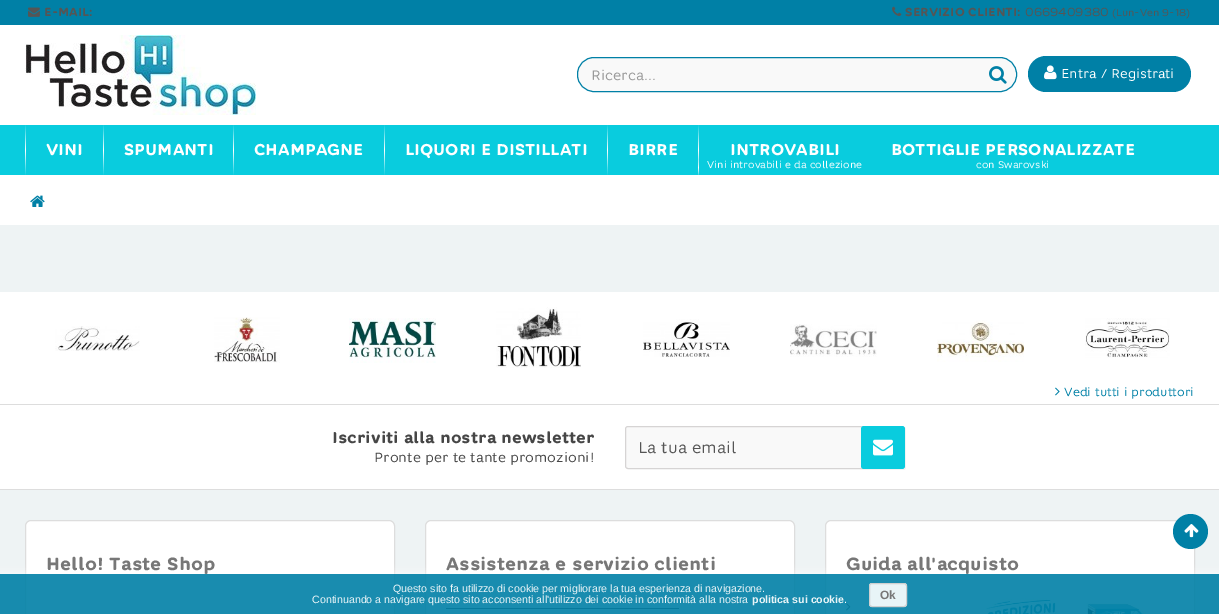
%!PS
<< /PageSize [1219 614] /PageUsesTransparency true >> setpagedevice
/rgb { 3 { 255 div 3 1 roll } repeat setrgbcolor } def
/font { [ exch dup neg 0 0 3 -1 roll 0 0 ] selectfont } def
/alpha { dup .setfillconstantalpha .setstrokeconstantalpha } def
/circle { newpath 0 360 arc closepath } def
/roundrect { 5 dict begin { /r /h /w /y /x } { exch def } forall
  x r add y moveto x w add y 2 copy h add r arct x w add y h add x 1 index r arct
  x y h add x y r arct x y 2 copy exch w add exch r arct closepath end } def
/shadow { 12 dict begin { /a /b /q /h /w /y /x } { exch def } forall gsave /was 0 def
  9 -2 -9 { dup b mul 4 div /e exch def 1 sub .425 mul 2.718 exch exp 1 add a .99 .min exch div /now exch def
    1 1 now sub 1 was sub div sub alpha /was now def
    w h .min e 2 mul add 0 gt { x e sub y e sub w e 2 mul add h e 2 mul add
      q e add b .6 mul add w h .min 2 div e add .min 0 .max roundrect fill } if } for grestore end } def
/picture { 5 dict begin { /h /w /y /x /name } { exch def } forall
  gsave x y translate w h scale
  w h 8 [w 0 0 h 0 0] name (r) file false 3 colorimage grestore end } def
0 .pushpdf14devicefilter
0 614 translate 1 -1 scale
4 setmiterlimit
238 243 244 rgb
0 0 1219 614 rectfill
0 128 166 rgb
0 0 1219 25 rectfill
(img/1.rgb) 28 7 12 10 picture
(img/2.rgb) 892 6 10 10 picture
255 255 255 rgb
0 25 1219 100 rectfill
(img/3.rgb) 25 35 231 80 picture
249 249 249 rgb
577.5 57.5 439 34 16.5 roundrect gsave fill grestore
0 128 166 rgb
stroke
(img/4.rgb) 989 66 18 18 picture
1028 56 163 36 18 roundrect fill
(img/5.rgb) 1044 65 13 15 picture
9 204 222 rgb
0 125 1219 50 rectfill
(img/6.rgb) 25 125 1 50 picture
(img/7.rgb) 103 125 1 50 picture
(img/6.rgb) 233 125 1 50 picture
(img/8.rgb) 384 125 1 50 picture
(img/7.rgb) 607 125 1 50 picture
(img/8.rgb) 698 125 1 50 picture
(img/9.rgb) 698 160 1 15 picture
255 255 255 rgb
0 175 1219 50 rectfill
(img/10.rgb) 30 195 15 12 picture
0 292 1219 112 rectfill
(img/11.rgb) 55 326 85 25 picture
(img/12.rgb) 214 317 66 46 picture
(img/13.rgb) 349 318 87 45 picture
(img/14.rgb) 496 307 85 61 picture
(img/15.rgb) 643 319 87 38 picture
(img/16.rgb) 790 324 87 33 picture
(img/17.rgb) 937 320 87 42 picture
(img/18.rgb) 1085 318 85 40 picture
(img/19.rgb) 1055 387 5 9 picture
[
  [0 405 1219 84 255 255 255]
  [0 404 1219 1 221 221 221]
  [0 489 1219 1 221 221 221]
] { aload pop rgb rectfill } forall
249 249 249 rgb
625.5 426.5 279 42 2.5 roundrect gsave fill grestore
214 212 212 rgb
stroke
243 243 243 rgb
862 469 moveto 863 469 864 470 865 470 curveto 903 470 lineto 905 470 906 469 906 467 curveto 906 430 lineto 906 429 905 428 905 427 curveto 905 429 lineto 905 466 lineto 905 468 904 469 902 469 curveto 864 469 lineto closepath fill
9 204 222 rgb
861 426 44 43 3 roundrect fill
(img/20.rgb) 873 439 20 17 picture
255 255 255 rgb
25.5 520.5 369 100 5.5 roundrect gsave fill grestore
221 221 221 rgb
stroke
255 255 255 rgb
425.5 520.5 369 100 5.5 roundrect gsave fill grestore
221 221 221 rgb
stroke
70 70 70 rgb
446 608 233 1 rectfill
255 255 255 rgb
825.5 520.5 369 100 5.5 roundrect gsave fill grestore
221 221 221 rgb
stroke
(img/21.rgb) 846 603 5 8 picture
(img/22.rgb) 986 598 160 16 picture
gsave
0 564 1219 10 rectclip
255 255 255 rgb
0 574 1219 40 0 5 0.9 shadow
grestore
0.9 alpha
0 128 166 rgb
0 574 1219 40 rectfill
255 255 255 rgb
869 583 38 24 3 roundrect fill
204 204 204 rgb
869.5 583.5 37 23 2.5 roundrect stroke
1 alpha
0 128 166 rgb
1190.5 531.5 17.5 circle fill
(img/23.rgb) 1184 524 15 14 picture
/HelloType-Bold 11.9 font
85 85 85 rgb
44 16 moveto (E-MAIL:) show
905 16 moveto (SERVIZIO CLIENTI:) show
/HelloType-Regular 11.9 font
1025 16 moveto (0669409380) show
/HelloType-Regular 10 font
1112 16 moveto (\(Lun-Ven 9-18\)) show
/HelloType-Regular 14 font
153 153 153 rgb
591 80 moveto (Ricerca...) show
/HelloType-Regular 13 font
255 255 255 rgb
1061 78 moveto (Entra / Registrati) show
/HelloType-Bold 16 font
[
  [(VINI) 46 155]
  [(SPUMANTI) 124 155]
  [(CHAMPAGNE) 254 155]
  [(LIQUORI E DISTILLATI) 405 155]
  [(BIRRE) 628 155]
  [(INTROVABILI) 730 155]
] { aload pop moveto show } forall
/HelloType-Regular 10 font
707 168 moveto (Vini introvabili e da collezione) show
/HelloType-Bold 16 font
891 155 moveto (BOTTIGLIE PERSONALIZZATE) show
/HelloType-Regular 10 font
976 168 moveto (con Swarovski) show
/HelloType-Regular 11.9 font
0 128 166 rgb
1064 396 moveto (Vedi tutti i produttori) show
/HelloType-Bold 16 font
70 70 70 rgb
332 443 moveto (Iscriviti alla nostra newsletter) show
/HelloType-Regular 13.6 font
374 462 moveto (Pronte per te tante promozioni!) show
/HelloType-Regular 16 font
85 85 85 rgb
638 453 moveto (La tua email) show
/HelloType-Bold 18 font
119 119 119 rgb
[
  [(Hello! Taste Shop) 46 570]
  [(Assistenza e servizio clienti) 446 570]
  [(Guida all'acquisto) 846 570]
] { aload pop moveto show } forall
/LiberationSans-Regular 10.65 font
232 244 247 rgb
393 592 moveto (Questo sito fa utilizzo di cookie per migliorare la tua esperienza di navigazione.) show
312 603 moveto (Continuando a navigare questo sito acconsenti all'utilizzo dei cookie in conformità alla nostra) show
/LiberationSans-Bold 10.65 font
752 603 moveto (politica sui cookie) show
/LiberationSans-Regular 10.65 font
255 255 255 rgb
844 603 moveto (.) show
/LiberationSans-Bold 12 font
119 119 119 rgb
880 599 moveto (Ok) show
.poppdf14devicefilter showpage
